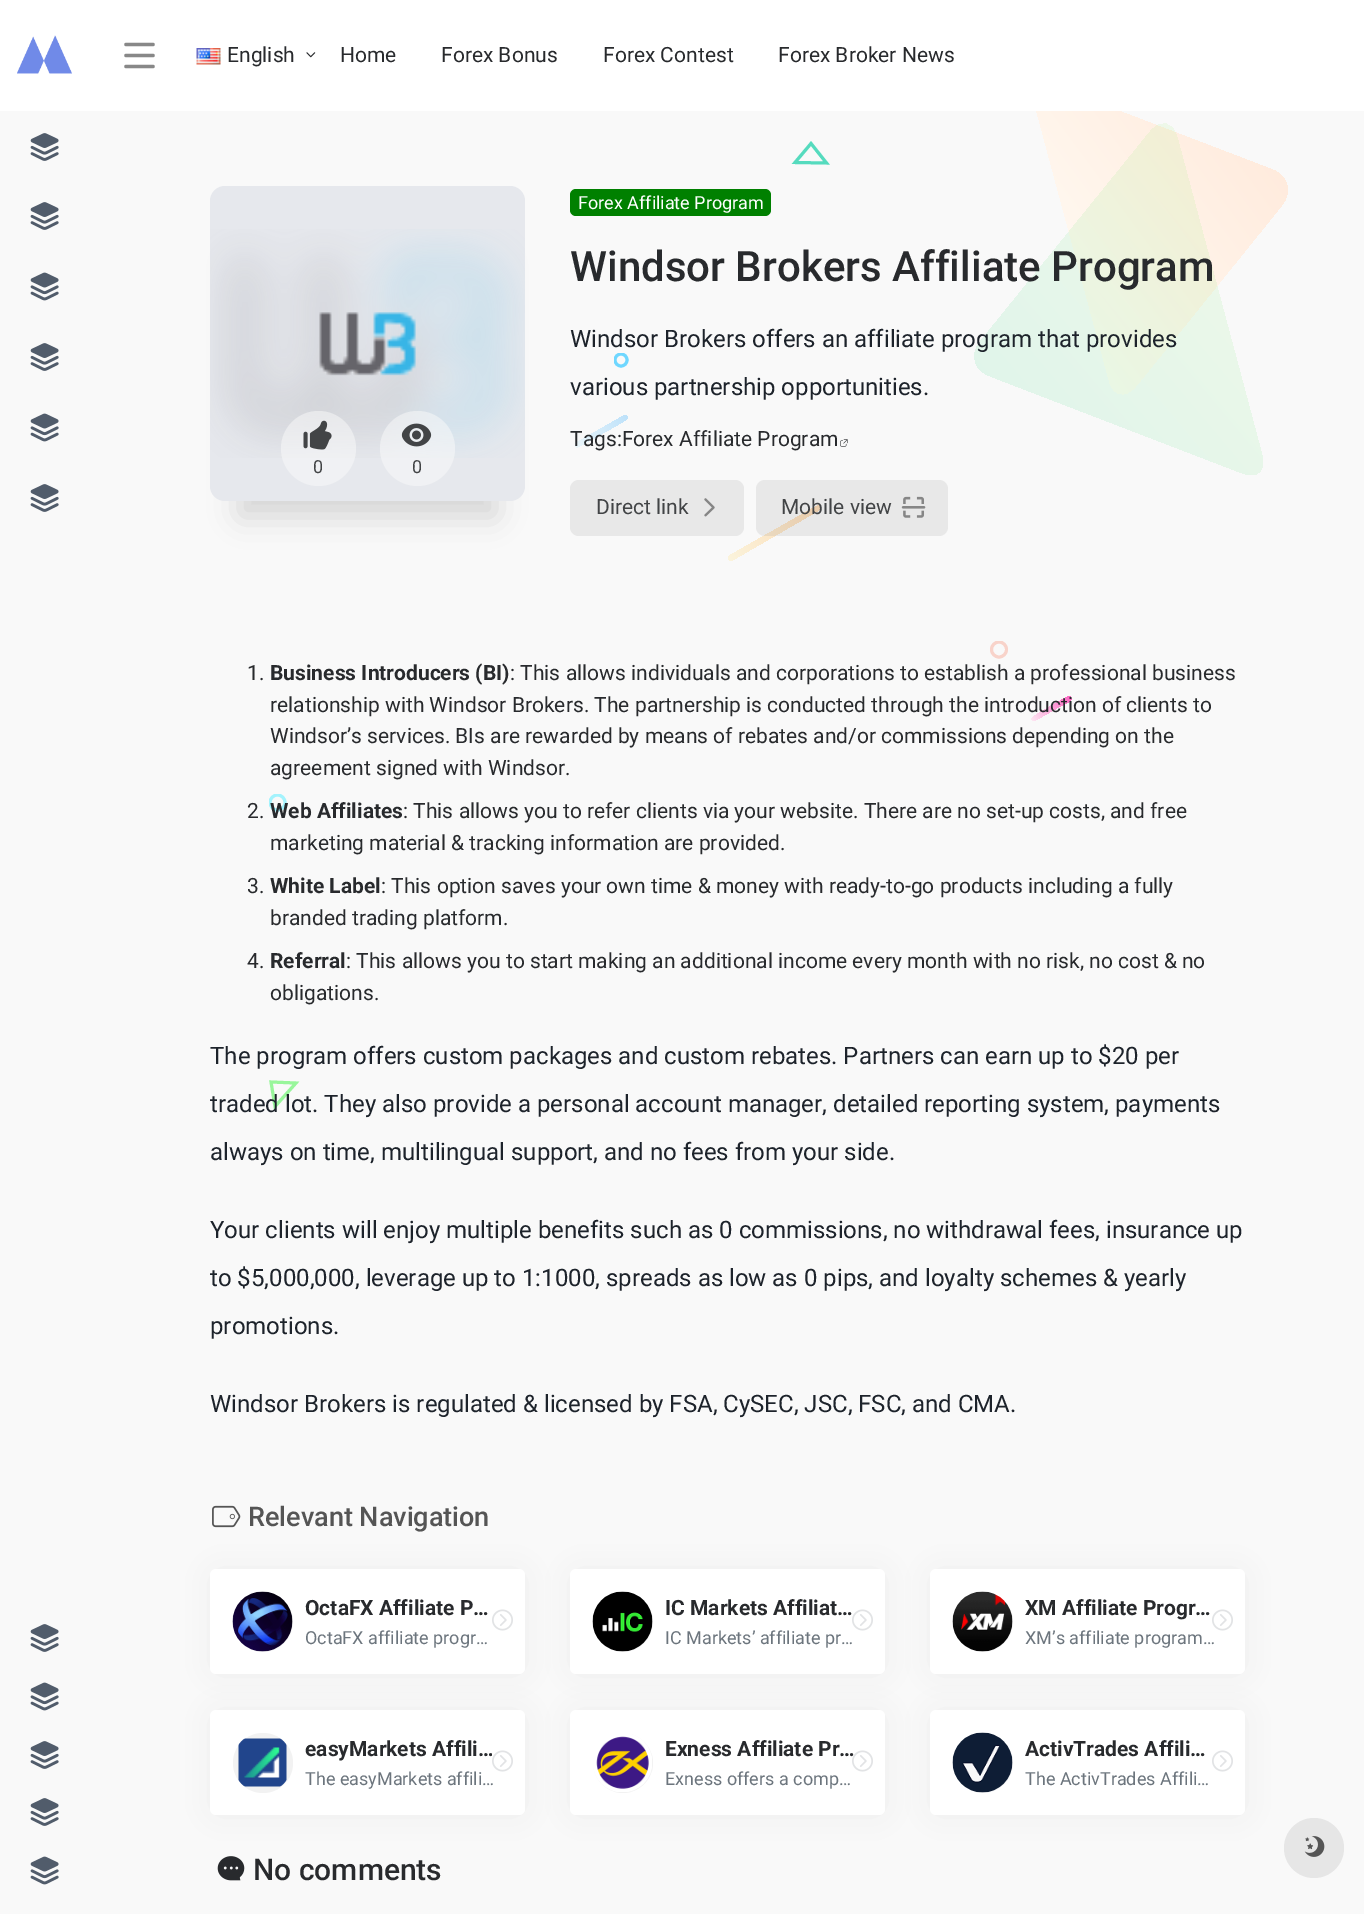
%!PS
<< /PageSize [1364 1914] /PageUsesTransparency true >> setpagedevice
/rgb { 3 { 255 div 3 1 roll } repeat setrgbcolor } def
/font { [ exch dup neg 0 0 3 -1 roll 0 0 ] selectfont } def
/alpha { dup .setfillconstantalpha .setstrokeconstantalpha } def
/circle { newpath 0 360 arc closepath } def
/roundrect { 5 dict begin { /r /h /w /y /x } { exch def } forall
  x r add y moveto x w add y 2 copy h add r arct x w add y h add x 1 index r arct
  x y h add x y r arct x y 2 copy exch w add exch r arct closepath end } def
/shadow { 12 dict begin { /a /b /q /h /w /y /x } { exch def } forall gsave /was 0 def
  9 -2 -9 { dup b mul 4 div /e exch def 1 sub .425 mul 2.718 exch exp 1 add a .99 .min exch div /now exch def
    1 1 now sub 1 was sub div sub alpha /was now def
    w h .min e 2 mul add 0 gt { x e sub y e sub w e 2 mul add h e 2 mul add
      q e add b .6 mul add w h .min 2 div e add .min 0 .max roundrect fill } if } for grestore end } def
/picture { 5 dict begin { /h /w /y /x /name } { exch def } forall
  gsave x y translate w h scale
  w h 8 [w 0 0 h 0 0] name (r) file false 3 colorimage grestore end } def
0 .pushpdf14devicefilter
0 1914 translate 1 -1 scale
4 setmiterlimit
249 249 249 rgb
0 0 1364 1914 rectfill
gsave 1109 380 moveto 1035 105 lineto 1031 89 1040 81 1056 87 curveto 1273 170 lineto 1288 176 1292 192 1282 205 curveto 1136 386 lineto 1125 399 1113 396 1109 380 curveto closepath eoclip newpath
<< /ShadingType 2 /ColorSpace /DeviceRGB /Coords [1223 85 1002 248] /Extend [true true] /Function << /FunctionType 2 /Domain [0 1] /C0 [1 0.922 0.867] /C1 [1 0.984 0.957] /N 1 >> >> shfill grestore
255 255 255 rgb
0 0 1364 111 rectfill
(img/1.rgb) 17 35 55 39 picture
(img/2.rgb) 30 133 29 28 picture
(img/2.rgb) 30 202 29 28 picture
(img/3.rgb) 30 272 29 29 picture
(img/2.rgb) 30 343 29 28 picture
(img/3.rgb) 30 413 29 29 picture
(img/2.rgb) 30 484 29 28 picture
(img/2.rgb) 30 1624 29 28 picture
(img/3.rgb) 30 1682 29 29 picture
(img/2.rgb) 30 1741 29 28 picture
(img/2.rgb) 30 1798 29 28 picture
(img/3.rgb) 30 1856 29 29 picture
136 136 136 rgb
3.3 setlinewidth
1 setlinecap
1 setlinejoin
126 44.5 moveto 153 44.5 lineto 126 55.5 moveto 153 55.5 lineto 126 66.5 moveto 153 66.5 lineto stroke
(img/4.rgb) 196 48 25 17 picture
(img/5.rgb) 306 52 10 6 picture
85 219 190 rgb
3 setlinewidth
0 setlinecap
0 setlinejoin
826.5 163 moveto 811 143.5 lineto 795 162.5 lineto closepath stroke
0.11 alpha
gsave 1177 137 moveto 1262 455 lineto 1266 471 1257 479 1242 473 curveto 990 376 lineto 974 370 970 355 980 342 curveto 1150 132 lineto 1161 119 1172 121 1177 137 curveto closepath eoclip newpath
<< /ShadingType 2 /ColorSpace /DeviceRGB /Coords [1176 124 934 327] /Extend [true true] /Function << /FunctionType 2 /Domain [0 1] /C0 [0.584 0.957 0.412] /C1 [0.082 0.816 0.431] /N 1 >> >> shfill grestore
gsave
614 353 15 15 rectclip
1 alpha
111 215 255 rgb
621 360 6 circle stroke
grestore
1 alpha
gsave 576 443 moveto 625 415 lineto 627 416 lineto 630 419 623 421 619 424 curveto 578 447 lineto 575 448 574 444 576 443 curveto closepath eoclip newpath
<< /ShadingType 2 /ColorSpace /DeviceRGB /Coords [576 446 627 416] /Extend [true true] /Function << /FunctionType 2 /Domain [0 1] /C0 [0.922 0.965 0.98] /C1 [0.745 0.886 0.98] /N 1 >> >> shfill grestore
gsave 729 556 moveto 817 506 lineto 818 505 820 507 820 508 curveto 819 510 lineto 731 561 lineto 729 561 727 558 729 556 curveto closepath eoclip newpath
<< /ShadingType 2 /ColorSpace /DeviceRGB /Coords [729 560 819 507] /Extend [true true] /Function << /FunctionType 2 /Domain [0 1] /C0 [0.984 0.957 0.863] /C1 [0.984 0.847 0.694] /N 1 >> >> shfill grestore
gsave
990 641 18 18 rectclip
248 211 202 rgb
999 649.5 7.5 circle stroke
grestore
gsave 1033 717 moveto 1037 714 1068 696 1070 696 curveto 1071 698 lineto 1072 701 1065 704 1064 704 curveto 1034 721 lineto 1033 721 1031 720 1032 718 curveto closepath eoclip newpath
<< /ShadingType 2 /ColorSpace /DeviceRGB /Coords [1032 720 1071 697] /Extend [true true] /Function << /FunctionType 2 /Domain [0 1] /C0 [0.992 0.898 0.949] /C1 [0.992 0.4 0.765] /N 1 >> >> shfill grestore
gsave
269 794 18 18 rectclip
164 243 253 rgb
277.5 802.5 7.5 circle stroke
grestore
152 246 155 rgb
296 1083 moveto 271 1082 lineto 275 1106.5 lineto closepath stroke
0 0 0 rgb
240 261 255 255 0 15 0.15 shadow
230 232 237 rgb
210 186 315 315 15 roundrect fill
(img/6.rgb) 210 229 315 229 picture
(img/7.rgb) 319 312 97 64 picture
0.5 alpha
250 250 250 rgb
318.5 448.5 37.5 circle fill
1 alpha
(img/8.rgb) 303 420 29 30 picture
0.5 alpha
417.5 448.5 37.5 circle fill
1 alpha
(img/9.rgb) 401 423 31 24 picture
0 128 0 rgb
570 189 201 27 6 roundrect fill
(img/10.rgb) 840 439 8 8 picture
232 232 232 rgb
570 480 174 56 9 roundrect fill
(img/11.rgb) 704 498 11 19 picture
0.15 alpha
138 138 138 rgb
756 480 192 56 9 roundrect fill
1 alpha
(img/12.rgb) 901 496 25 22 picture
(img/13.rgb) 212 1505 29 23 picture
158 158 158 rgb
218 1577 300 90 0 15 0.2 shadow
255 255 255 rgb
210 1569 315 105 6 roundrect fill
242 242 242 rgb
263 1622 30 circle fill
(img/14.rgb) 232 1591 61 61 picture
(img/15.rgb) 492 1609 21 22 picture
158 158 158 rgb
578 1577 300 90 0 15 0.2 shadow
255 255 255 rgb
570 1569 315 105 6 roundrect fill
242 242 242 rgb
623 1622 30 circle fill
(img/16.rgb) 592 1591 61 61 picture
(img/15.rgb) 852 1609 21 22 picture
158 158 158 rgb
938 1577 300 90 0 15 0.2 shadow
255 255 255 rgb
930 1569 315 105 6 roundrect fill
242 242 242 rgb
983 1622 30 circle fill
(img/17.rgb) 952 1591 61 61 picture
158 158 158 rgb
218 1718 300 90 0 15 0.2 shadow
255 255 255 rgb
210 1710 315 105 6 roundrect fill
242 242 242 rgb
263 1763 30 circle fill
(img/18.rgb) 238 1738 49 49 picture
158 158 158 rgb
578 1718 300 90 0 15 0.2 shadow
255 255 255 rgb
570 1710 315 105 6 roundrect fill
242 242 242 rgb
623 1763 30 circle fill
(img/19.rgb) 593 1733 59 59 picture
158 158 158 rgb
938 1718 300 90 0 15 0.2 shadow
255 255 255 rgb
930 1710 315 105 6 roundrect fill
242 242 242 rgb
983 1763 30 circle fill
(img/21.rgb) 952 1732 61 61 picture
(img/15.rgb) 1212 1750 21 22 picture
(img/22.rgb) 217 1856 28 25 picture
230 230 230 rgb
1314 1848 30 circle fill
(img/23.rgb) 1304 1836 21 21 picture
/Roboto-Regular 21 font
40 42 45 rgb
[
  [(English) 227 62]
  [(Home) 340 62]
  [(Forex Bonus) 441 62]
  [(Forex Contest) 603 62]
  [(Forex Broker News) 778 62]
] { aload pop moveto show } forall
/Roboto-Regular 18 font
66 68 70 rgb
313 473 moveto (0) show
412 473 moveto (0) show
255 255 255 rgb
578 209 moveto (Forex Affiliate Program) show
/Roboto-Medium 42 font
40 42 45 rgb
570 281 moveto (Windsor Brokers Affiliate Program) show
/Roboto-Regular 24 font
29 35 43 rgb
570 347 moveto (Windsor Brokers offers an affiliate program that provides) show
570 395 moveto (various partnership opportunities.) show
/Roboto-Regular 21 font
40 42 45 rgb
570 446 moveto (Tags:Forex Affiliate Program) show
66 68 70 rgb
596 514 moveto (Direct link) show
781 514 moveto (Mobile view) show
40 42 45 rgb
247 680 moveto (1.) show
/Roboto-Bold 21 font
270 680 moveto (Business Introducers \(BI\)) show
/Roboto-Regular 21 font
[
  [(: This allows individuals and corporations to establish a professional business) 510 680]
  [(relationship with Windsor Brokers. The partnership is conducted through the introduction of clients to) 270 712]
  [(Windsor’s services. BIs are rewarded by means of rebates and/or commissions depending on the) 270 743]
  [(agreement signed with Windsor.) 270 775]
  [(2.) 247 818]
] { aload pop moveto show } forall
/Roboto-Bold 21 font
270 818 moveto (Web Affiliates) show
/Roboto-Regular 21 font
[
  [(: This allows you to refer clients via your website. There are no set-up costs, and free) 403 818]
  [(marketing material & tracking information are provided.) 270 850]
  [(3.) 247 893]
] { aload pop moveto show } forall
/Roboto-Bold 21 font
270 893 moveto (White Label) show
/Roboto-Regular 21 font
[
  [(: This option saves your own time & money with ready-to-go products including a fully) 381 893]
  [(branded trading platform.) 270 925]
  [(4.) 247 968]
] { aload pop moveto show } forall
/Roboto-Bold 21 font
270 968 moveto (Referral) show
/Roboto-Regular 21 font
346 968 moveto (: This allows you to start making an additional income every month with no risk, no cost & no) show
270 1000 moveto (obligations.) show
/Roboto-Regular 24 font
29 35 43 rgb
[
  [(The program offers custom packages and custom rebates. Partners can earn up to $20 per) 210 1064]
  [(traded lot. They also provide a personal account manager, detailed reporting system, payments) 210 1112]
  [(always on time, multilingual support, and no fees from your side.) 210 1160]
  [(Your clients will enjoy multiple benefits such as 0 commissions, no withdrawal fees, insurance up) 210 1238]
  [(to $5,000,000, leverage up to 1:1000, spreads as low as 0 pips, and loyalty schemes & yearly) 210 1286]
  [(promotions.) 210 1334]
  [(Windsor Brokers is regulated & licensed by FSA, CySEC, JSC, FSC, and CMA.) 210 1412]
] { aload pop moveto show } forall
/Roboto-Medium 27 font
85 85 85 rgb
248 1526 moveto (Relevant Navigation) show
/Roboto-Bold 21 font
40 42 45 rgb
305 1615 moveto (OctaFX Affiliate P…) show
/Roboto-Regular 18 font
108 117 125 rgb
305 1644 moveto (OctaFX affiliate progr…) show
/Roboto-Bold 21 font
40 42 45 rgb
665 1615 moveto (IC Markets Affiliat…) show
/Roboto-Regular 18 font
108 117 125 rgb
665 1644 moveto (IC Markets’ affiliate pr…) show
/Roboto-Bold 21 font
40 42 45 rgb
1025 1615 moveto (XM Affiliate Progr…) show
/Roboto-Regular 18 font
108 117 125 rgb
1025 1644 moveto (XM’s affiliate program…) show
(img/15.rgb) 1212 1609 21 22 picture
/Roboto-Bold 21 font
40 42 45 rgb
305 1756 moveto (easyMarkets Affili…) show
/Roboto-Regular 18 font
108 117 125 rgb
305 1785 moveto (The easyMarkets affili…) show
(img/15.rgb) 492 1750 21 22 picture
/Roboto-Bold 21 font
40 42 45 rgb
665 1756 moveto (Exness Affiliate Pr…) show
/Roboto-Regular 18 font
108 117 125 rgb
665 1785 moveto (Exness offers a comp…) show
(img/20.rgb) 852 1750 21 22 picture
/Roboto-Bold 21 font
40 42 45 rgb
1025 1756 moveto (ActivTrades Affili…) show
/Roboto-Regular 18 font
108 117 125 rgb
1025 1785 moveto (The ActivTrades Affili…) show
/Roboto-Medium 30 font
40 42 45 rgb
253 1880 moveto (No comments) show
.poppdf14devicefilter showpage
